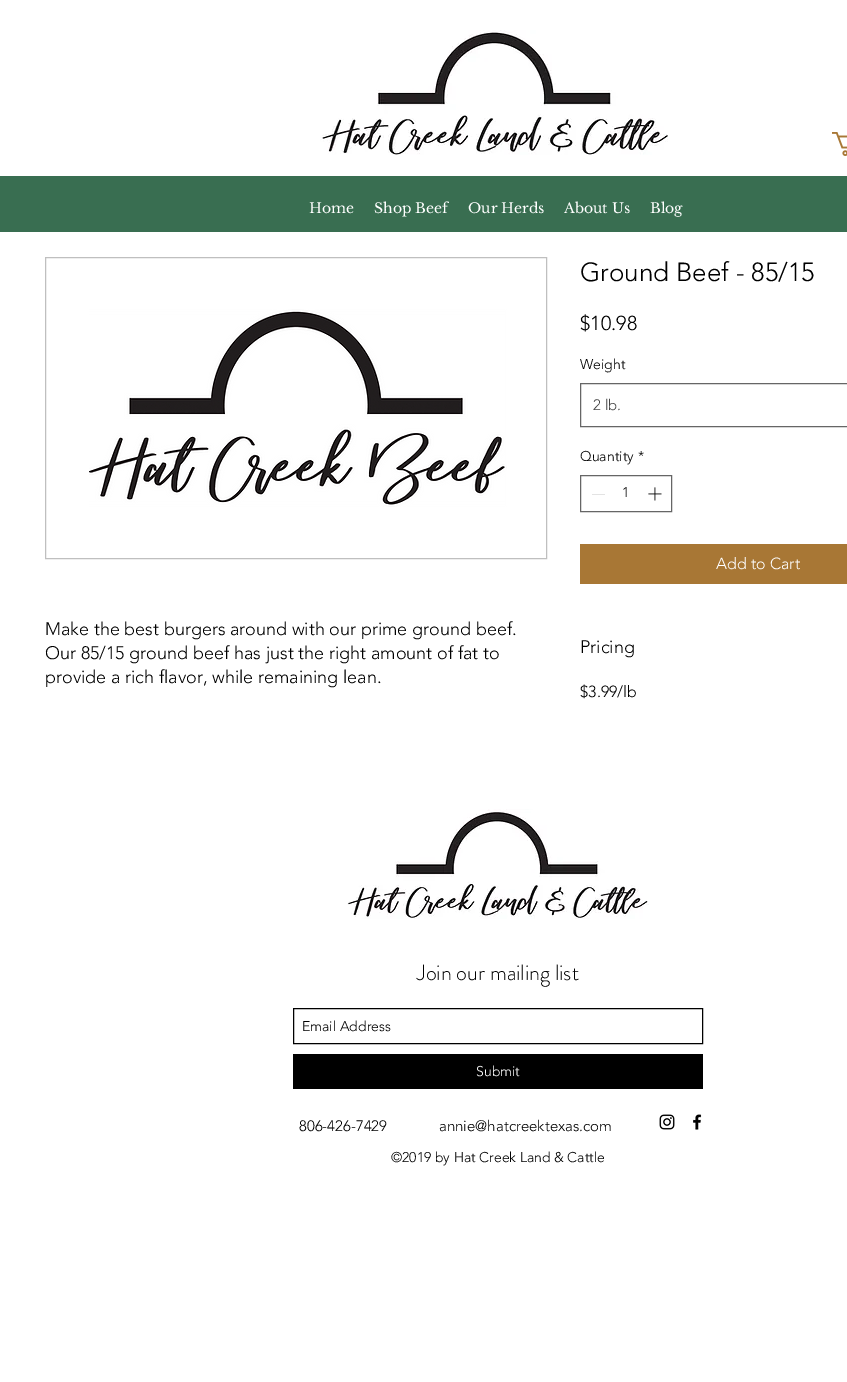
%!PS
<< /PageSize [847 1382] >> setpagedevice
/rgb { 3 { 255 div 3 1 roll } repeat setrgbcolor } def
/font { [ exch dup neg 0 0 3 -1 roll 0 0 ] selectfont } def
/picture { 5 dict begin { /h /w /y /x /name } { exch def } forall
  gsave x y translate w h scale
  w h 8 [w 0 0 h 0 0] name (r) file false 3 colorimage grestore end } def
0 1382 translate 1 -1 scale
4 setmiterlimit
255 255 255 rgb
0 0 847 1382 rectfill
(img/1.rgb) 320 30 348 125 picture
(img/2.rgb) 832 132 15 24 picture
57 110 81 rgb
0 176 847 56 rectfill
191 191 191 rgb
45.5 257.5 501 301 rectstroke
(img/3.rgb) 89 309 418 198 picture
102 102 102 rgb
580.5 383.5 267 43 rectstroke
580.5 475.5 91 36 rectstroke
227 227 227 rgb
592 494 13 1 rectfill
(img/4.rgb) 648 487 14 14 picture
168 119 53 rgb
580 544 267 40 rectfill
(img/5.rgb) 347 809 302 110 picture
0 0 0 rgb
293.5 1008.5 409 35 rectstroke
293 1054 410 35 rectfill
(img/6.rgb) 659 1114 16 16 picture
(img/7.rgb) 693 1114 9 16 picture
/LibreBaskerville-Regular 14 font
255 255 255 rgb
[
  [(Home) 309 213]
  [(Shop Beef) 374 213]
  [(Our Herds) 468 213]
  [(About Us) 564 213]
  [(Blog) 650 213]
] { aload pop moveto show } forall
/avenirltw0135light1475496-Light 18 font
0 0 0 rgb
[
  [(Make the best burgers around with our prime ground beef.) 45 635]
  [(Our 85/15 ground beef has just the right amount of fat to) 45 659]
  [(provide a rich flavor, while remaining lean.) 45 683]
] { aload pop moveto show } forall
/avenirltw0135light1475496-Light 26 font
580 281 moveto (Ground Beef - 85/15) show
/avenirltw0135light1475496-Light 20 font
580 330 moveto ($10.98) show
/avenirltw0135light1475496-Light 14 font
580 369 moveto (Weight) show
/avenirltw0135light1475496-Light 15 font
68 68 68 rgb
593 410 moveto (2 lb.) show
/avenirltw0135light1475496-Light 14 font
0 0 0 rgb
[
  [(Quantity) 580 461]
  [(*) 638 461]
  [(1) 622 497]
] { aload pop moveto show } forall
/avenirltw0135light1475496-Light 16 font
255 255 255 rgb
716 569 moveto (Add to Cart) show
/avenirltw0135light1475496-Light 18 font
0 0 0 rgb
580 653 moveto (Pricing) show
/avenirltw0135light1475496-Light 16 font
580 697 moveto ($3.99/lb) show
/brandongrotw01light-Light 22 font
417 980 moveto (Join our mailing list) show
/avenirltw0135light1475496-Light 14 font
302 1031 moveto (Email Address) show
255 255 255 rgb
476 1076 moveto (Submit) show
/avenirltw0135light1475496-Light 15 font
0 0 0 rgb
299 1131 moveto (806-426-7429) show
439 1131 moveto (annie@hatcreektexas.com) show
/avenirltw0135light1475496-Light 14 font
391 1162 moveto (©2019 by Hat Creek Land & Cattle) show
showpage
